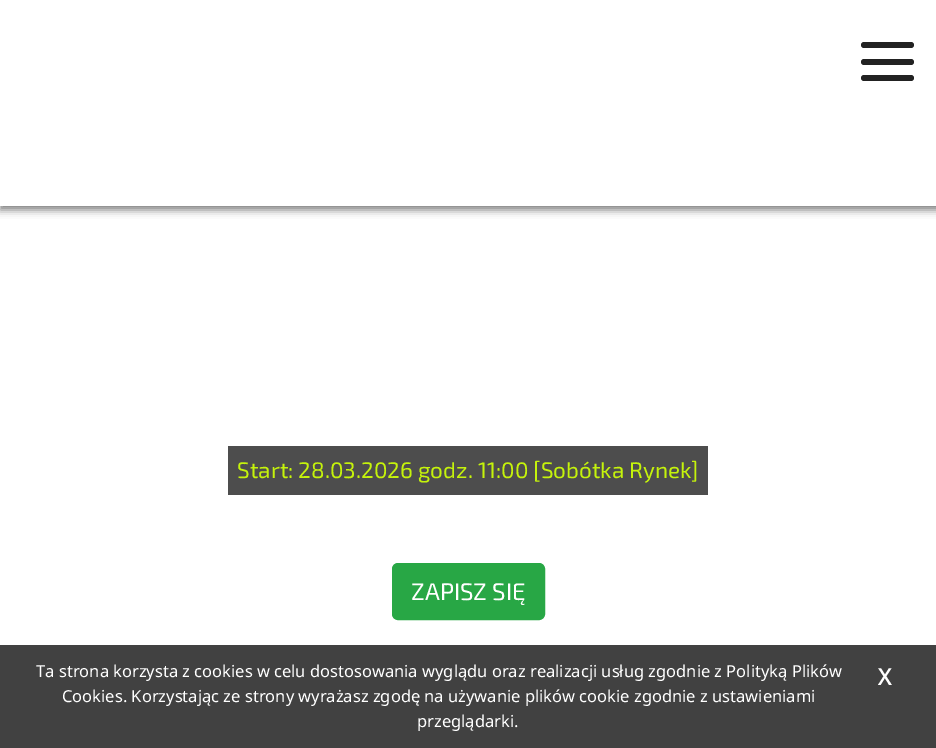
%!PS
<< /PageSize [936 748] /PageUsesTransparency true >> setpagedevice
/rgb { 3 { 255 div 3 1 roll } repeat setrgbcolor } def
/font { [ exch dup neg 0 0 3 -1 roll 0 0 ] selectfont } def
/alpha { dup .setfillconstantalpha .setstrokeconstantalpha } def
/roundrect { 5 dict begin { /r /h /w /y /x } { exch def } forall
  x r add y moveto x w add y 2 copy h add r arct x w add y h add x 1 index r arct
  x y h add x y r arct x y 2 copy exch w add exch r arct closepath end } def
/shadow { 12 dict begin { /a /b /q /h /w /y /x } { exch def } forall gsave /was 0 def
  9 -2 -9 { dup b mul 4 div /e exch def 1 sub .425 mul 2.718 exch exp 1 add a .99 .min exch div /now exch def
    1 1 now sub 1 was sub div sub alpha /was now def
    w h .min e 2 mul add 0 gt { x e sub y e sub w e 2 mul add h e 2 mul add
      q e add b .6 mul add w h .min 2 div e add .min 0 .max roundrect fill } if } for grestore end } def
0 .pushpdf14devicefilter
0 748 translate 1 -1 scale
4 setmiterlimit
255 255 255 rgb
0 0 936 748 rectfill
0 0 0 rgb
0 2 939 208 0 4 0.5 shadow
255 255 255 rgb
0 0 936 206 rectfill
34 34 34 rgb
861 42 53 6 3 roundrect fill
863 42 49 1 rectfill
863 47 49 1 rectfill
861 59 53 6 3 roundrect fill
863 59 49 1 rectfill
863 64 49 1 rectfill
861 75 53 6 3 roundrect fill
[
  [863 75 49 1 34 34 34]
  [863 80 49 1 34 34 34]
  [228 446 480 49 77 77 77]
] { aload pop rgb rectfill } forall
40 167 69 rgb
393 564 151 55 5 roundrect gsave fill grestore
2 setlinewidth
stroke
65 65 65 rgb
0 645 936 103 rectfill
/Exo2-Regular 22.5 font
197 243 11 rgb
237 478 moveto (Start: 28.03.2026 godz. 11:00 [Sobótka Rynek]) show
/Exo2-Regular 24 font
255 255 255 rgb
411 600 moveto (ZAPISZ SIĘ) show
/NotoSans-Regular 16.5 font
36 677 moveto (Ta strona korzysta z cookies w celu dostosowania wyglądu oraz realizacji usług zgodnie z Polityką Plików) show
/NotoSans-Bold 22.5 font
878 685 moveto (X) show
/NotoSans-Regular 16.5 font
62 702 moveto (Cookies. Korzystając ze strony wyrażasz zgodę na używanie plików cookie zgodnie z ustawieniami) show
417 727 moveto (przeglądarki.) show
.poppdf14devicefilter showpage
